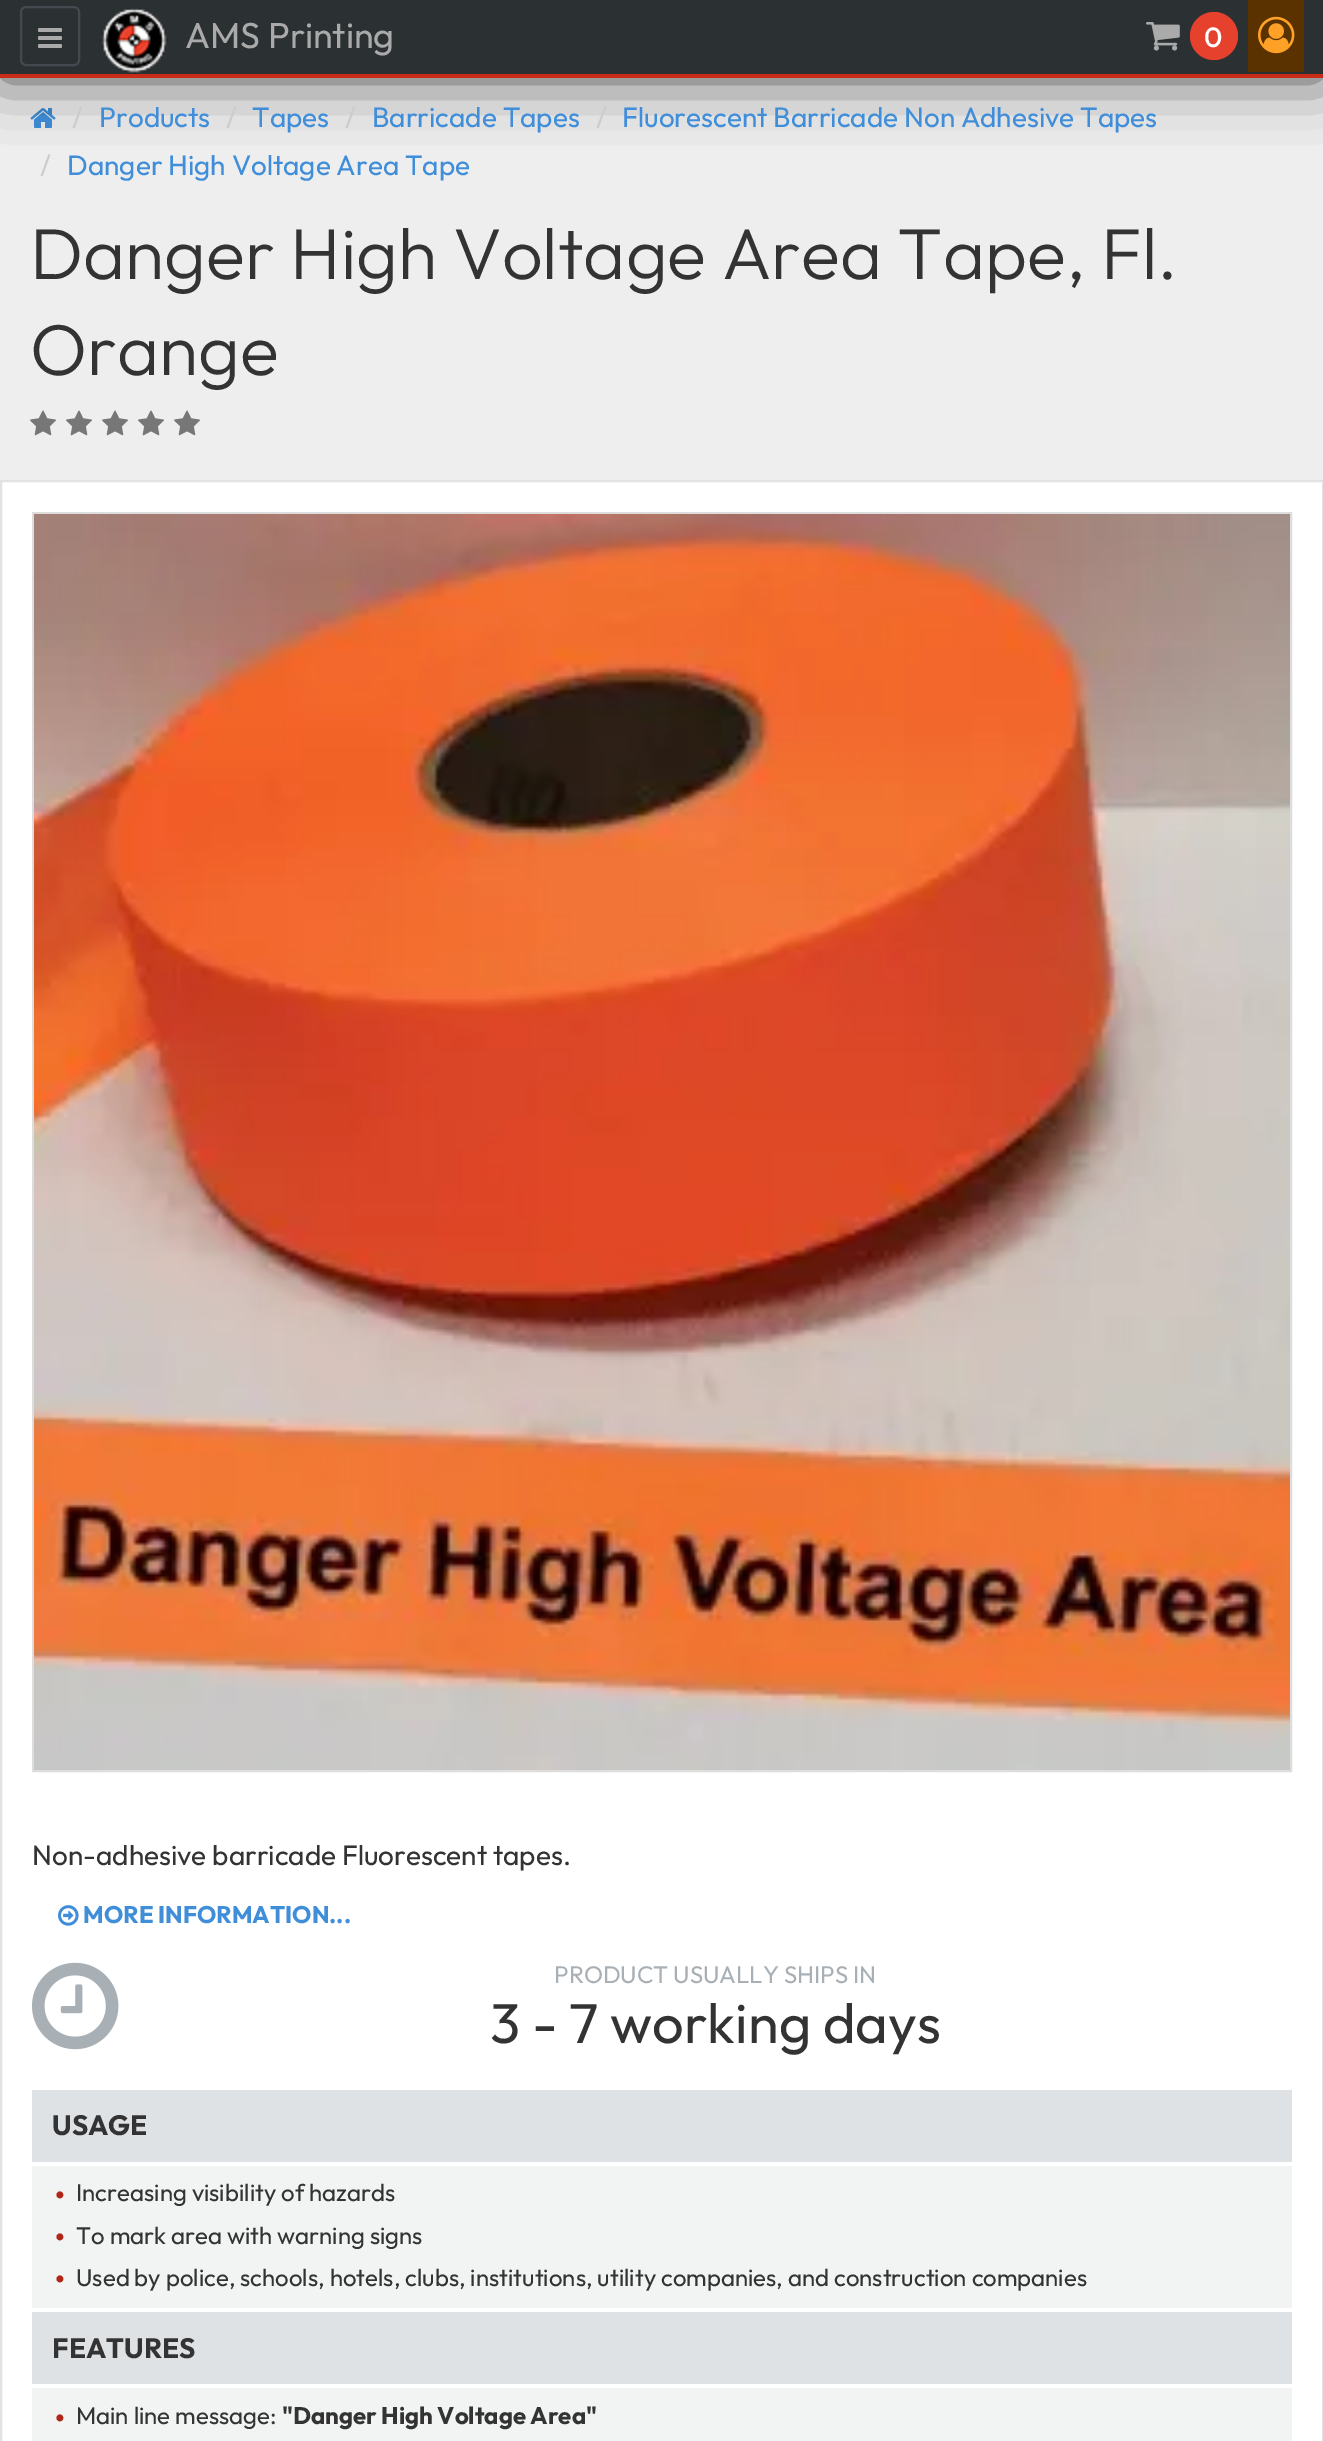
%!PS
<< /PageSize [1323 2441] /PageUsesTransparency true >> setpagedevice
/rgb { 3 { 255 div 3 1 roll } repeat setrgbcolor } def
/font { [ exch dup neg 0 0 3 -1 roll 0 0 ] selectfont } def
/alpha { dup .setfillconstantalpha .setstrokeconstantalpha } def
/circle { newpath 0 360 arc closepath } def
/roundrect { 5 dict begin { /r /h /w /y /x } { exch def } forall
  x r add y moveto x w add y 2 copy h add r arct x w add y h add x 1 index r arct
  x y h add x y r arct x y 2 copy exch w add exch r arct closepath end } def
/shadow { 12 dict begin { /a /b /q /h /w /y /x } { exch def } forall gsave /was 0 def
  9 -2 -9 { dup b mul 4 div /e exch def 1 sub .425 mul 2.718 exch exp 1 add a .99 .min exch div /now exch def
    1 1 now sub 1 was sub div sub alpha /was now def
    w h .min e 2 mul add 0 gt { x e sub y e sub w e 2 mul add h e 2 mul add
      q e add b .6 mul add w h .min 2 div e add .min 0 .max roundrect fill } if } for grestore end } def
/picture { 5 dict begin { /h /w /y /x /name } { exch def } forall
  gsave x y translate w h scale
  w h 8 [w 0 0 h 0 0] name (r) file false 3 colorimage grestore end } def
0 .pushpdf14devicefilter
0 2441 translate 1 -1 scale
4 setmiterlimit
238 238 238 rgb
0 0 1323 2441 rectfill
(img/5.rgb) 30 108 26 20 picture
0 0 0 rgb
0 0 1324 78 0 30 0.7 shadow
43 48 51 rgb
0 0 1323 74 rectfill
198 44 24 rgb
0 74 1323 4 rectfill
66 74 79 rgb
2 setlinewidth
21 7 58 58 5 roundrect stroke
(img/1.rgb) 38 28 24 20 picture
(img/2.rgb) 100 8 68 66 picture
(img/3.rgb) 1146 22 34 29 picture
229 65 44 rgb
1214 36 24 circle fill
89 50 0 rgb
1248 0 56 72 rectfill
(img/4.rgb) 1258 16 37 38 picture
(img/6.rgb) 30 410 26 26 picture
(img/6.rgb) 66 410 26 26 picture
(img/6.rgb) 102 410 26 26 picture
(img/6.rgb) 138 410 26 26 picture
(img/6.rgb) 174 410 26 26 picture
255 255 255 rgb
1 481 moveto 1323 481 lineto 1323 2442 lineto 1 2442 lineto closepath gsave fill grestore
226 226 226 rgb
stroke
221 221 221 rgb
33 513 1258 1258 rectstroke
(img/7.rgb) 34 514 1256 1256 picture
(img/8.rgb) 58 1905 21 21 picture
(img/9.rgb) 32 1962 87 88 picture
[
  [32 2166 1260 142 242 244 244]
  [32 2090 1260 72 223 226 228]
  [32 2388 1260 53 242 244 244]
  [32 2312 1260 72 223 226 228]
] { aload pop rgb rectfill } forall
/Outfit-Regular 36 font
170 170 170 rgb
185 48 moveto (AMS Printing) show
/Outfit-Medium 28 font
255 255 255 rgb
1204 47 moveto (0) show
/Outfit-Regular 28 font
204 204 204 rgb
72 127 moveto (/) show
64 142 217 rgb
99 127 moveto (Products) show
204 204 204 rgb
226 127 moveto (/) show
64 142 217 rgb
252 127 moveto (Tapes) show
204 204 204 rgb
345 127 moveto (/) show
64 142 217 rgb
372 127 moveto (Barricade Tapes) show
204 204 204 rgb
596 127 moveto (/) show
64 142 217 rgb
622 127 moveto (Fluorescent Barricade Non Adhesive Tapes) show
204 204 204 rgb
40 175 moveto (/) show
64 142 217 rgb
67 175 moveto (Danger High Voltage Area Tape) show
/Outfit-Light 72 font
51 51 51 rgb
30 279 moveto (Danger High Voltage Area Tape, Fl.) show
30 375 moveto (Orange) show
/Outfit-Regular 28 font
32 1865 moveto (Non-adhesive barricade Fluorescent tapes.) show
/Outfit-Bold 24 font
64 142 217 rgb
83 1923 moveto (MORE INFORMATION...) show
/Outfit-Regular 24 font
168 176 181 rgb
554 1983 moveto (PRODUCT USUALLY SHIPS IN) show
/Outfit-Regular 56 font
51 51 51 rgb
490 2043 moveto (3 - 7 working days) show
/Outfit-Bold 28 font
52 2135 moveto (USAGE) show
/Outfit-Regular 36 font
175 39 22 rgb
54 2208 moveto (•) show
/Outfit-Regular 24 font
51 51 51 rgb
76 2201 moveto (Increasing visibility of hazards) show
/Outfit-Regular 36 font
175 39 22 rgb
54 2250 moveto (•) show
/Outfit-Regular 24 font
51 51 51 rgb
76 2244 moveto (To mark area with warning signs) show
/Outfit-Regular 36 font
175 39 22 rgb
54 2292 moveto (•) show
/Outfit-Regular 24 font
51 51 51 rgb
76 2286 moveto (Used by police, schools, hotels, clubs, institutions, utility companies, and construction companies) show
/Outfit-Bold 28 font
52 2358 moveto (FEATURES) show
/Outfit-Regular 36 font
175 39 22 rgb
54 2431 moveto (•) show
/Outfit-Regular 24 font
51 51 51 rgb
76 2424 moveto (Main line message:) show
/Outfit-Bold 24 font
282 2424 moveto ("Danger High Voltage Area") show
.poppdf14devicefilter showpage
